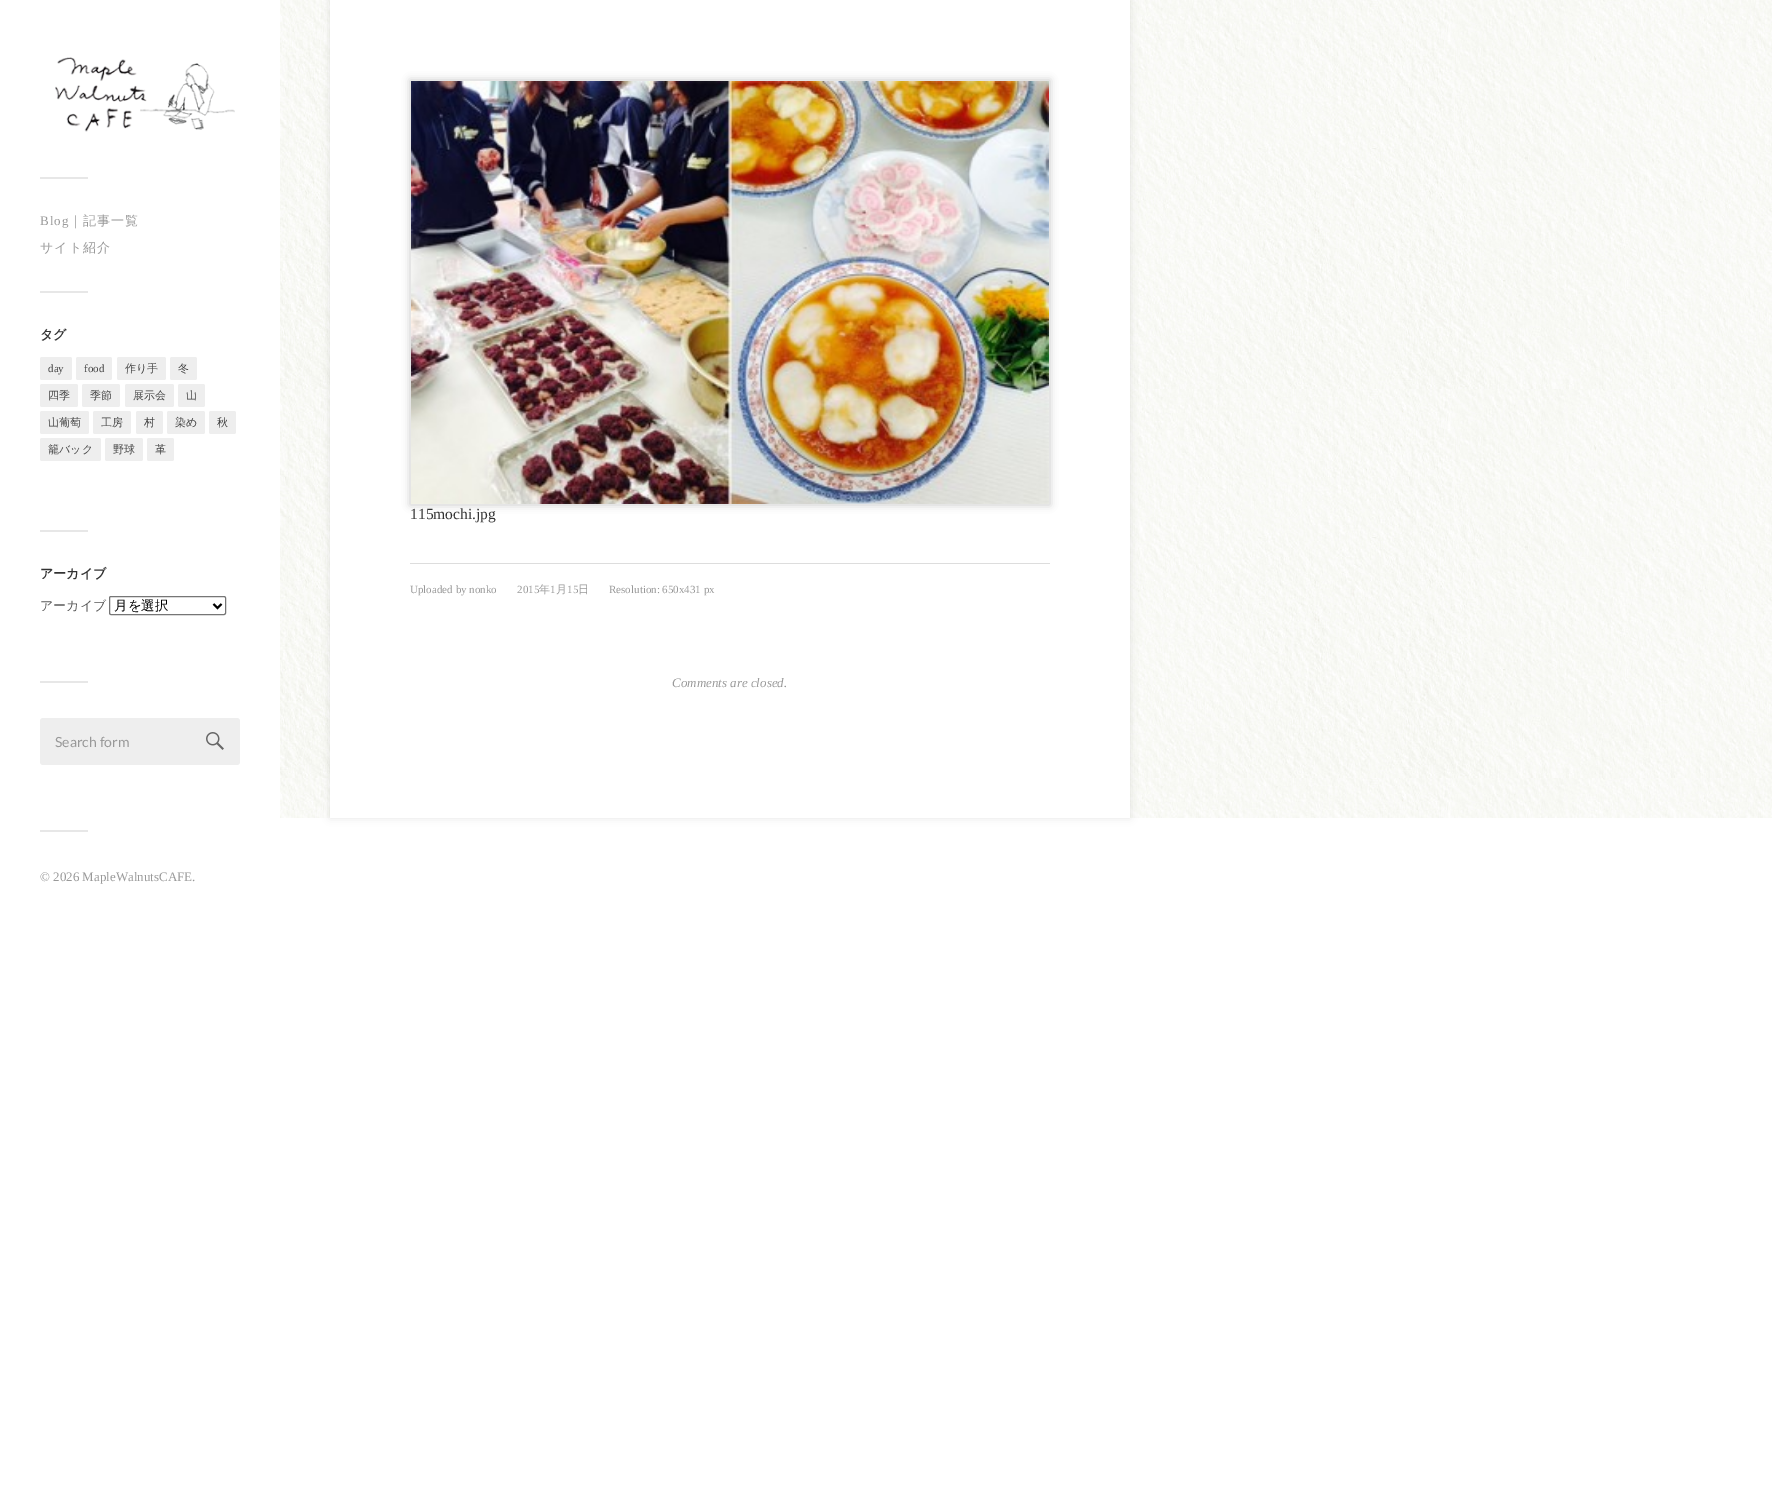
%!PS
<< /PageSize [1772 1499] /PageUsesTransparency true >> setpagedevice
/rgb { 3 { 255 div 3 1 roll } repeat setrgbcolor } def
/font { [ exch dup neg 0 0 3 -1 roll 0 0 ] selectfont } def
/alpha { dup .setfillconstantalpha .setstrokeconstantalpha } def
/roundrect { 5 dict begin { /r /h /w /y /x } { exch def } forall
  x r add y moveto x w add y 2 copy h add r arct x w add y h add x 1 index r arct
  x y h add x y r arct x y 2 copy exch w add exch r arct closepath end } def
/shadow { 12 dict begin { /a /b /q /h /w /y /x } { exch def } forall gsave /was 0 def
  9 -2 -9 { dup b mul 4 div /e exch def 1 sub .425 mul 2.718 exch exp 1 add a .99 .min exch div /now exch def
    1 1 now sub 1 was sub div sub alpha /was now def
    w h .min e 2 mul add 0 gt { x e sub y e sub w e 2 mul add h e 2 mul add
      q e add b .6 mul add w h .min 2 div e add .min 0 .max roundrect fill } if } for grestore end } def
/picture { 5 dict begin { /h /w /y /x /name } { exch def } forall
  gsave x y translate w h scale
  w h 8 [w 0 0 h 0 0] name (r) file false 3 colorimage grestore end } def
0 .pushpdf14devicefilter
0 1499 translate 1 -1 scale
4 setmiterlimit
255 255 255 rgb
0 0 1772 1499 rectfill
(img/1.rgb) 55 57 180 75 picture
231 231 231 rgb
40 177 48 2 rectfill
40 291 48 2 rectfill
238 238 238 rgb
40 357 32 23 2 roundrect fill
76 357 36 23 2 roundrect fill
117 357 49 23 2 roundrect fill
170 357 27 23 2 roundrect fill
40 384 38 23 2 roundrect fill
82 384 38 23 2 roundrect fill
125 384 49 23 2 roundrect fill
178 384 27 23 2 roundrect fill
40 411 49 23 2 roundrect fill
93 411 38 23 2 roundrect fill
136 411 27 23 2 roundrect fill
167 411 38 23 2 roundrect fill
209 411 27 23 2 roundrect fill
40 438 61 23 2 roundrect fill
105 438 38 23 2 roundrect fill
147 438 27 23 2 roundrect fill
231 231 231 rgb
40 530 48 2 rectfill
118 118 118 rgb
109.5 596.5 116 18 1.5 roundrect stroke
0 0 0 rgb
2 setlinewidth
213.5 604 moveto 217.5 608 lineto 221.5 604 lineto stroke
231 231 231 rgb
40 681 48 2 rectfill
238 238 238 rgb
40 718 200 47 3 roundrect fill
(img/2.rgb) 206 732 18 18 picture
231 231 231 rgb
40 830 48 2 rectfill
(img/3.rgb) 280 0 1492 818 picture
0 0 0 rgb
330 0 800 818 0 4 0.1 shadow
255 255 255 rgb
330 0 800 818 rectfill
0 0 0 rgb
410 80 640 425 0 4 0.2 shadow
(img/4.rgb) 411 81 638 423 picture
221 221 221 rgb
410 563 640 1 rectfill
/LiberationSerif-Regular 13 font
153 153 153 rgb
40 225 moveto 1 0 (Blog) ashow
/WenQuanYiZenHei-Medium 13 font
69 225 moveto 1 0 (｜記事一覧) ashow
40 252 moveto 1 0 (サイト紹介) ashow
/WenQuanYiZenHei-Bold 13 font
51 51 51 rgb
40 339 moveto (タグ) show
/LiberationSerif-Regular 11 font
68 68 68 rgb
48 372 moveto (day) show
84 372 moveto (food) show
/WenQuanYiZenHei-Medium 11 font
[
  [(作り手) 125 372]
  [(冬) 178 372]
  [(四季) 48 399]
  [(季節) 90 399]
  [(展示会) 133 399]
  [(山) 186 399]
  [(山葡萄) 48 426]
  [(工房) 101 426]
  [(村) 144 426]
  [(染め) 175 426]
  [(秋) 217 426]
  [(籠バック) 48 453]
  [(野球) 113 453]
  [(革) 155 453]
] { aload pop moveto show } forall
/WenQuanYiZenHei-Bold 13 font
51 51 51 rgb
40 578 moveto (アーカイブ) show
/WenQuanYiZenHei-Medium 13 font
85 85 85 rgb
40 610 moveto (アーカイブ) show
/WenQuanYiZenHei-Medium 13.5 font
0 0 0 rgb
114 610 moveto (月を選択) show
/Lato-Regular 14 font
153 153 153 rgb
55 747 moveto (Search form) show
/LiberationSerif-Regular 13 font
40 881 moveto (© 2026 MapleWalnutsCAFE.) show
/LiberationSerif-Regular 15.5 font
51 51 51 rgb
410 519 moveto (115mochi.jpg) show
/LiberationSerif-Regular 11 font
153 153 153 rgb
410 593 moveto (Uploaded by nonko) show
517 593 moveto (2015) show
/WenQuanYiZenHei-Medium 11 font
539 593 moveto (年) show
/LiberationSerif-Regular 11 font
550 593 moveto (1) show
/WenQuanYiZenHei-Medium 11 font
556 593 moveto (月) show
/LiberationSerif-Regular 11 font
567 593 moveto (15) show
/WenQuanYiZenHei-Medium 11 font
578 593 moveto (日) show
/LiberationSerif-Regular 11 font
609 593 moveto (Resolution: 650x431 px) show
/LiberationSerif-Italic 13 font
672 687 moveto (Comments are closed.) show
.poppdf14devicefilter showpage
